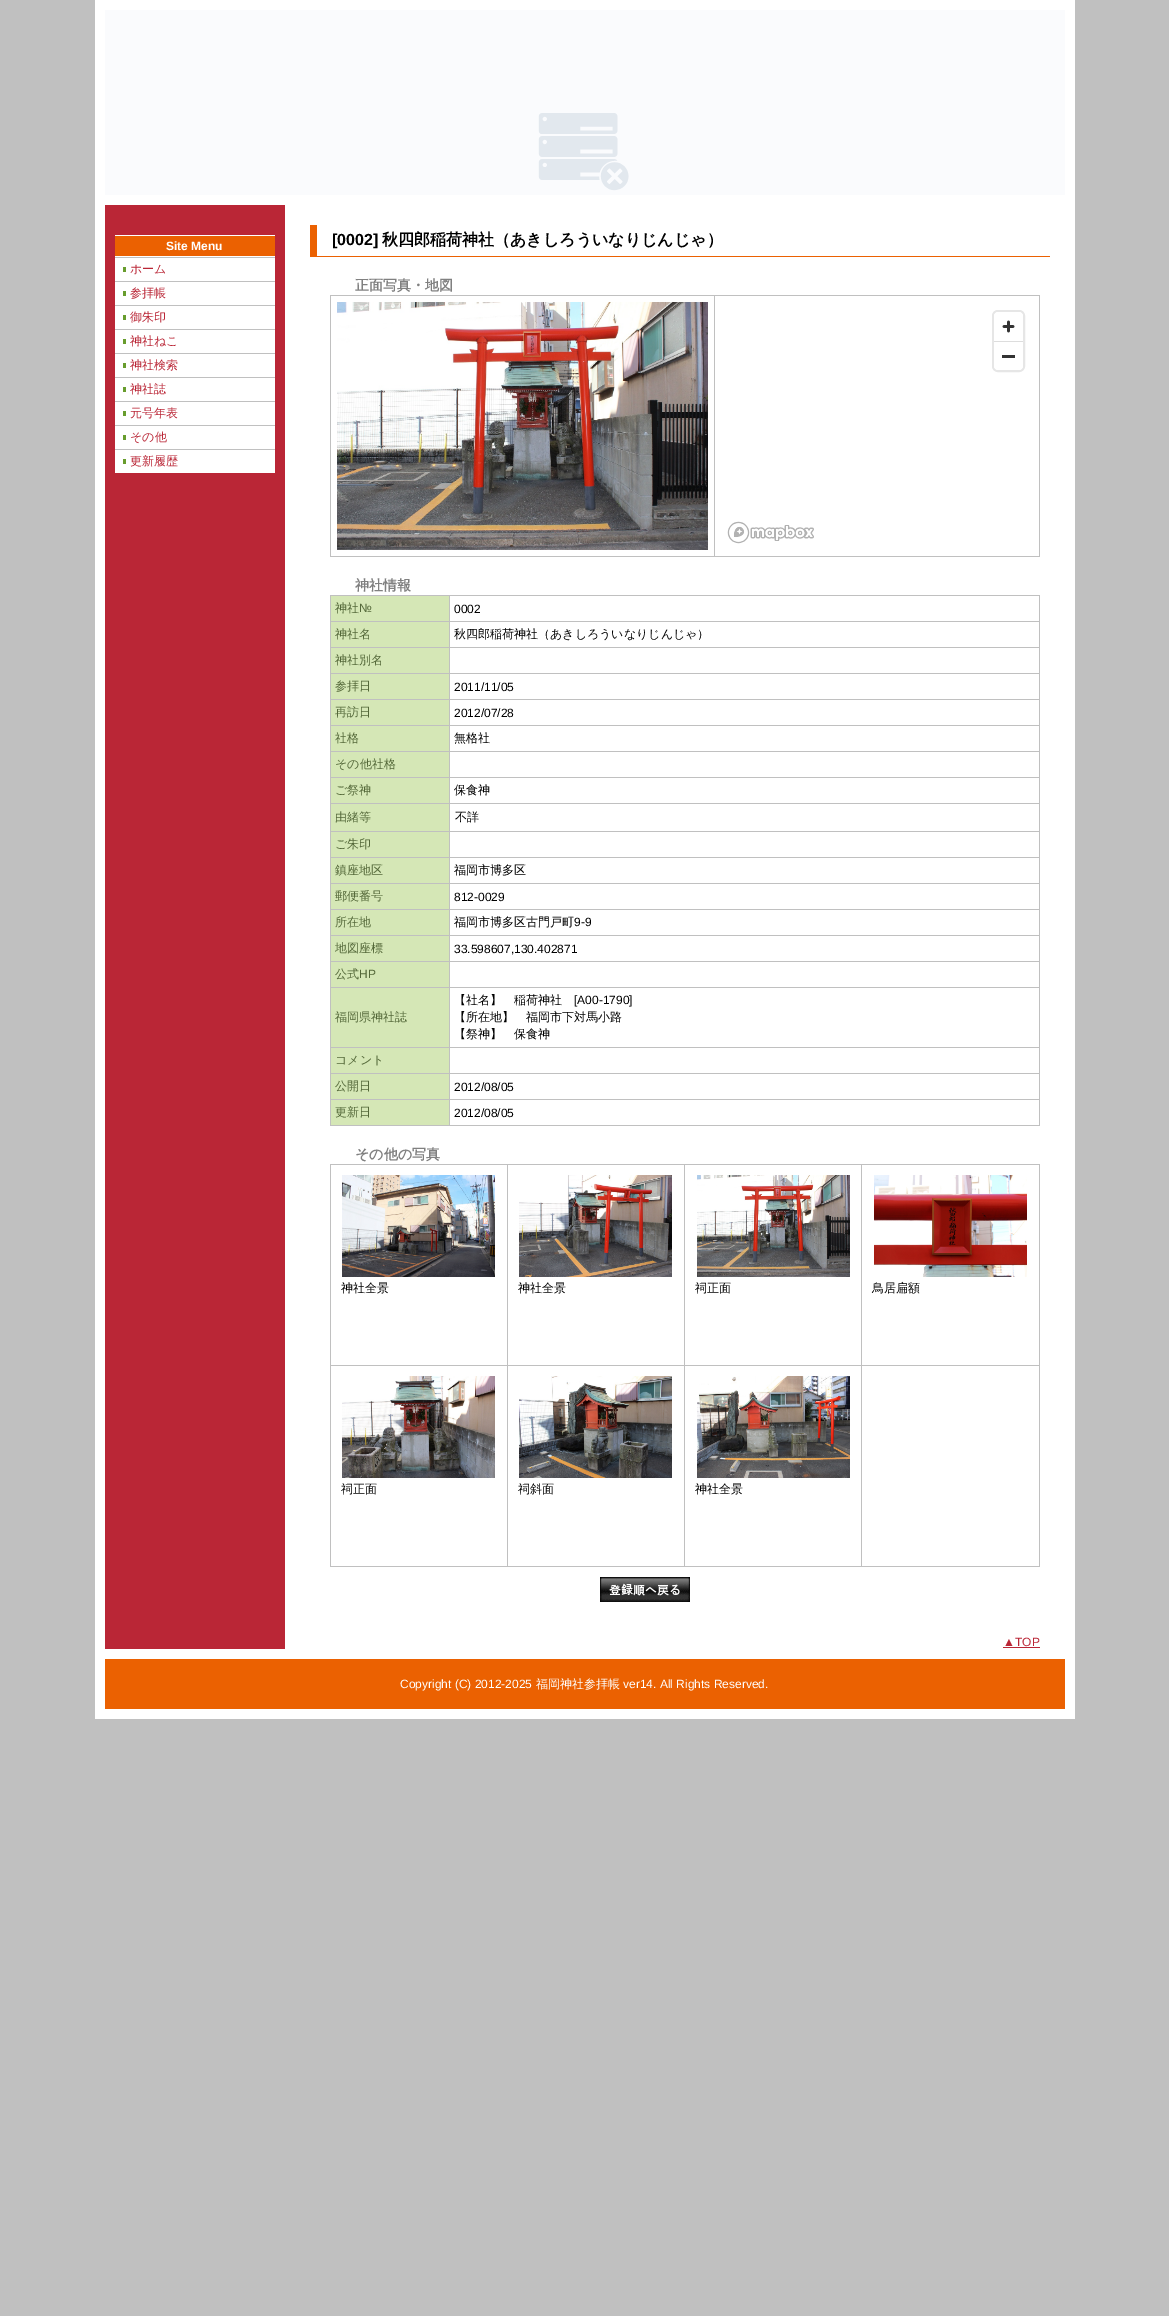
%!PS
<< /PageSize [1169 2316] >> setpagedevice
/rgb { 3 { 255 div 3 1 roll } repeat setrgbcolor } def
/font { [ exch dup neg 0 0 3 -1 roll 0 0 ] selectfont } def
/roundrect { 5 dict begin { /r /h /w /y /x } { exch def } forall
  x r add y moveto x w add y 2 copy h add r arct x w add y h add x 1 index r arct
  x y h add x y r arct x y 2 copy exch w add exch r arct closepath end } def
/picture { 5 dict begin { /h /w /y /x /name } { exch def } forall
  gsave x y translate w h scale
  w h 8 [w 0 0 h 0 0] name (r) file false 3 colorimage grestore end } def
0 2316 translate 1 -1 scale
4 setmiterlimit
192 192 192 rgb
0 0 1169 2316 rectfill
255 255 255 rgb
95 0 980 1719 rectfill
(img/1.rgb) 105 10 960 185 picture
[
  [105 205 180 1444 186 38 54]
  [115 236 160 20 235 97 1]
  [115 235 160 1 255 255 255]
  [115 256 160 1 255 255 255]
  [115 258 160 215 255 255 255]
  [123 267 3 5 104 157 45]
  [115 257 160 1 192 192 192]
  [123 291 3 5 104 157 45]
  [115 281 160 1 192 192 192]
  [123 315 3 5 104 157 45]
  [115 305 160 1 192 192 192]
  [123 339 3 5 104 157 45]
  [115 329 160 1 192 192 192]
  [123 363 3 5 104 157 45]
  [115 353 160 1 192 192 192]
  [123 387 3 5 104 157 45]
  [115 377 160 1 192 192 192]
  [123 411 3 5 104 157 45]
  [115 401 160 1 192 192 192]
  [123 435 3 5 104 157 45]
  [115 425 160 1 192 192 192]
  [123 459 3 5 104 157 45]
  [115 449 160 1 192 192 192]
  [310 256 740 1 235 97 1]
  [310 225 7 32 235 97 1]
  [714 295 326 1 192 192 192]
  [1039 295 1 262 192 192 192]
  [714 556 326 1 192 192 192]
  [714 295 1 262 192 192 192]
  [330 295 385 1 192 192 192]
  [330 556 385 1 192 192 192]
  [330 295 1 262 192 192 192]
] { aload pop rgb rectfill } forall
(img/2.rgb) 337 302 371 248 picture
230 230 230 rgb
2 setlinewidth
993 311 31 60 5 roundrect stroke
255 255 255 rgb
994 312 29 58 4 roundrect fill
(img/3.rgb) 1002 320 13 13 picture
221 221 221 rgb
994 341 29 1 rectfill
51 51 51 rgb
1002 355 13 3 rectfill
(img/4.rgb) 727 521 87 23 picture
[
  [331 596 118 25 213 231 182]
  [449 595 591 1 192 192 192]
  [449 621 591 1 192 192 192]
  [449 647 591 1 192 192 192]
  [449 673 591 1 192 192 192]
  [449 699 591 1 192 192 192]
  [449 725 591 1 192 192 192]
  [449 751 591 1 192 192 192]
  [449 777 591 1 192 192 192]
  [449 803 591 1 192 192 192]
  [449 831 591 1 192 192 192]
  [449 857 591 1 192 192 192]
  [449 883 591 1 192 192 192]
  [449 909 591 1 192 192 192]
  [449 935 591 1 192 192 192]
  [449 961 591 1 192 192 192]
  [449 987 591 1 192 192 192]
  [449 1047 591 1 192 192 192]
  [449 1073 591 1 192 192 192]
  [449 1099 591 1 192 192 192]
  [1039 1099 1 27 192 192 192]
  [449 1125 591 1 192 192 192]
  [449 1099 1 27 192 192 192]
  [330 1099 120 1 192 192 192]
  [449 1073 1 27 192 192 192]
  [330 1073 120 1 192 192 192]
  [449 1047 1 27 192 192 192]
  [330 1047 120 1 192 192 192]
  [449 987 1 61 192 192 192]
  [330 987 120 1 192 192 192]
  [449 961 1 27 192 192 192]
  [330 961 120 1 192 192 192]
  [449 935 1 27 192 192 192]
  [330 935 120 1 192 192 192]
  [449 909 1 27 192 192 192]
  [330 909 120 1 192 192 192]
  [449 883 1 27 192 192 192]
  [330 883 120 1 192 192 192]
  [449 857 1 27 192 192 192]
  [330 857 120 1 192 192 192]
  [449 831 1 27 192 192 192]
  [330 831 120 1 192 192 192]
  [449 803 1 29 192 192 192]
  [330 803 120 1 192 192 192]
  [449 777 1 27 192 192 192]
  [330 777 120 1 192 192 192]
  [449 751 1 27 192 192 192]
  [330 751 120 1 192 192 192]
  [449 725 1 27 192 192 192]
  [330 725 120 1 192 192 192]
  [449 699 1 27 192 192 192]
  [330 699 120 1 192 192 192]
  [449 673 1 27 192 192 192]
  [330 673 120 1 192 192 192]
  [449 647 1 27 192 192 192]
  [330 647 120 1 192 192 192]
  [449 621 1 27 192 192 192]
  [330 621 120 1 192 192 192]
  [449 595 1 27 192 192 192]
  [330 595 120 1 192 192 192]
  [330 1125 120 1 192 192 192]
  [330 1099 1 27 192 192 192]
  [330 1073 1 27 192 192 192]
  [330 1047 1 27 192 192 192]
  [330 987 1 61 192 192 192]
  [330 961 1 27 192 192 192]
  [330 935 1 27 192 192 192]
  [330 909 1 27 192 192 192]
  [330 883 1 27 192 192 192]
  [330 857 1 27 192 192 192]
  [330 831 1 27 192 192 192]
  [330 803 1 29 192 192 192]
  [330 777 1 27 192 192 192]
  [330 751 1 27 192 192 192]
  [330 725 1 27 192 192 192]
  [330 699 1 27 192 192 192]
  [330 673 1 27 192 192 192]
  [330 647 1 27 192 192 192]
  [330 621 1 27 192 192 192]
  [330 595 1 27 192 192 192]
  [1039 1073 1 27 192 192 192]
  [1039 1047 1 27 192 192 192]
  [1039 987 1 61 192 192 192]
  [1039 961 1 27 192 192 192]
  [1039 935 1 27 192 192 192]
  [1039 909 1 27 192 192 192]
  [1039 883 1 27 192 192 192]
  [1039 857 1 27 192 192 192]
  [1039 831 1 27 192 192 192]
  [1039 803 1 29 192 192 192]
  [1039 777 1 27 192 192 192]
  [1039 751 1 27 192 192 192]
  [1039 725 1 27 192 192 192]
  [1039 699 1 27 192 192 192]
  [1039 673 1 27 192 192 192]
  [1039 647 1 27 192 192 192]
  [1039 621 1 27 192 192 192]
  [1039 595 1 27 192 192 192]
  [331 622 118 25 213 231 182]
  [331 648 118 25 213 231 182]
  [331 674 118 25 213 231 182]
  [331 700 118 25 213 231 182]
  [331 726 118 25 213 231 182]
  [331 752 118 25 213 231 182]
  [331 778 118 25 213 231 182]
  [331 804 118 27 213 231 182]
  [331 832 118 25 213 231 182]
  [331 858 118 25 213 231 182]
  [331 884 118 25 213 231 182]
  [331 910 118 25 213 231 182]
  [331 936 118 25 213 231 182]
  [331 962 118 25 213 231 182]
  [331 988 118 59 213 231 182]
  [331 1048 118 25 213 231 182]
  [331 1074 118 25 213 231 182]
  [331 1100 118 25 213 231 182]
  [861 1164 179 1 192 192 192]
  [861 1365 179 1 192 192 192]
  [1039 1365 1 202 192 192 192]
  [861 1566 179 1 192 192 192]
  [861 1365 1 202 192 192 192]
  [684 1365 178 1 192 192 192]
  [861 1164 1 202 192 192 192]
  [684 1164 178 1 192 192 192]
  [684 1566 178 1 192 192 192]
  [684 1365 1 202 192 192 192]
  [507 1365 178 1 192 192 192]
  [684 1164 1 202 192 192 192]
  [507 1164 178 1 192 192 192]
  [507 1566 178 1 192 192 192]
  [507 1365 1 202 192 192 192]
  [330 1365 178 1 192 192 192]
  [507 1164 1 202 192 192 192]
  [330 1164 178 1 192 192 192]
  [330 1566 178 1 192 192 192]
  [330 1365 1 202 192 192 192]
  [330 1164 1 202 192 192 192]
] { aload pop rgb rectfill } forall
(img/5.rgb) 342 1175 153 102 picture
(img/6.rgb) 519 1175 153 102 picture
(img/7.rgb) 697 1175 153 102 picture
1039 1164 1 202 rectfill
(img/8.rgb) 874 1175 153 102 picture
(img/9.rgb) 342 1376 153 102 picture
(img/10.rgb) 519 1376 153 102 picture
(img/11.rgb) 697 1376 153 102 picture
(img/12.rgb) 600 1577 90 25 picture
186 38 54 rgb
1003 1647 37 1 rectfill
235 97 1 rgb
105 1659 960 50 rectfill
/LiberationSans-Bold 12 font
255 255 255 rgb
166 250 moveto (Site Menu) show
/WenQuanYiZenHei-Medium 12 font
186 38 54 rgb
[
  [(ホーム) 130 273]
  [(参拝帳) 130 297]
  [(御朱印) 130 321]
  [(神社ねこ) 130 345]
  [(神社検索) 130 369]
  [(神社誌) 130 393]
  [(元号年表) 130 417]
  [(その他) 130 441]
  [(更新履歴) 130 465]
] { aload pop moveto show } forall
/LiberationSans-Bold 16 font
0 0 0 rgb
332 245 moveto ([0002]) show
/WenQuanYiZenHei-Bold 16 font
382 245 moveto (秋四郎稲荷神社（あきしろういなりじんじゃ）) show
/WenQuanYiZenHei-Bold 14 font
128 128 128 rgb
355 290 moveto (正面写真・地図) show
355 590 moveto (神社情報) show
/WenQuanYiZenHei-Medium 12 font
84 104 57 rgb
335 612 moveto (神社) show
/LiberationSans-Regular 12 font
359 612 moveto (№) show
0 0 0 rgb
454 613 moveto (0002) show
/WenQuanYiZenHei-Medium 12 font
84 104 57 rgb
335 638 moveto (神社名) show
0 0 0 rgb
454 638 moveto (秋四郎稲荷神社（あきしろういなりじんじゃ）) show
84 104 57 rgb
335 664 moveto (神社別名) show
335 690 moveto (参拝日) show
/LiberationSans-Regular 12 font
0 0 0 rgb
454 691 moveto (2011/11/05) show
/WenQuanYiZenHei-Medium 12 font
84 104 57 rgb
335 716 moveto (再訪日) show
/LiberationSans-Regular 12 font
0 0 0 rgb
454 717 moveto (2012/07/28) show
/WenQuanYiZenHei-Medium 12 font
84 104 57 rgb
335 742 moveto (社格) show
0 0 0 rgb
454 742 moveto (無格社) show
84 104 57 rgb
335 768 moveto (その他社格) show
335 794 moveto (ご祭神) show
0 0 0 rgb
454 794 moveto (保食神) show
84 104 57 rgb
335 821 moveto (由緒等) show
0 0 0 rgb
455 821 moveto (不詳) show
84 104 57 rgb
335 848 moveto (ご朱印) show
335 874 moveto (鎮座地区) show
0 0 0 rgb
454 874 moveto (福岡市博多区) show
84 104 57 rgb
335 900 moveto (郵便番号) show
/LiberationSans-Regular 12 font
0 0 0 rgb
454 901 moveto (812-0029) show
/WenQuanYiZenHei-Medium 12 font
84 104 57 rgb
335 926 moveto (所在地) show
0 0 0 rgb
454 926 moveto (福岡市博多区古門戸町) show
/LiberationSans-Regular 12 font
574 926 moveto (9-9) show
/WenQuanYiZenHei-Medium 12 font
84 104 57 rgb
335 952 moveto (地図座標) show
/LiberationSans-Regular 12 font
0 0 0 rgb
454 953 moveto (33.598607,130.402871) show
/WenQuanYiZenHei-Medium 12 font
84 104 57 rgb
335 978 moveto (公式) show
/LiberationSans-Regular 12 font
359 978 moveto (HP) show
/WenQuanYiZenHei-Medium 12 font
335 1021 moveto (福岡県神社誌) show
0 0 0 rgb
454 1004 moveto (【社名】　稲荷神社) show
/LiberationSans-Regular 12 font
574 1004 moveto ([A00-1790]) show
/WenQuanYiZenHei-Medium 12 font
454 1021 moveto (【所在地】　福岡市下対馬小路) show
454 1038 moveto (【祭神】　保食神) show
84 104 57 rgb
335 1064 moveto (コメント) show
335 1090 moveto (公開日) show
/LiberationSans-Regular 12 font
0 0 0 rgb
454 1091 moveto (2012/08/05) show
/WenQuanYiZenHei-Medium 12 font
84 104 57 rgb
335 1116 moveto (更新日) show
/LiberationSans-Regular 12 font
0 0 0 rgb
454 1117 moveto (2012/08/05) show
/WenQuanYiZenHei-Bold 14 font
128 128 128 rgb
355 1159 moveto (その他の写真) show
/WenQuanYiZenHei-Medium 12 font
0 0 0 rgb
[
  [(神社全景) 341 1292]
  [(神社全景) 518 1292]
  [(祠正面) 695 1292]
  [(鳥居扁額) 872 1292]
  [(祠正面) 341 1493]
  [(祠斜面) 518 1493]
  [(神社全景) 695 1493]
] { aload pop moveto show } forall
/LiberationSans-Regular 12 font
186 38 54 rgb
1003 1646 moveto (▲TOP) show
255 255 255 rgb
400 1688 moveto (Copyright \(C\) 2012-2025) show
/WenQuanYiZenHei-Medium 12 font
536 1688 moveto (福岡神社参拝帳) show
/LiberationSans-Regular 12 font
623 1688 moveto (ver14. All Rights Reserved.) show
showpage
